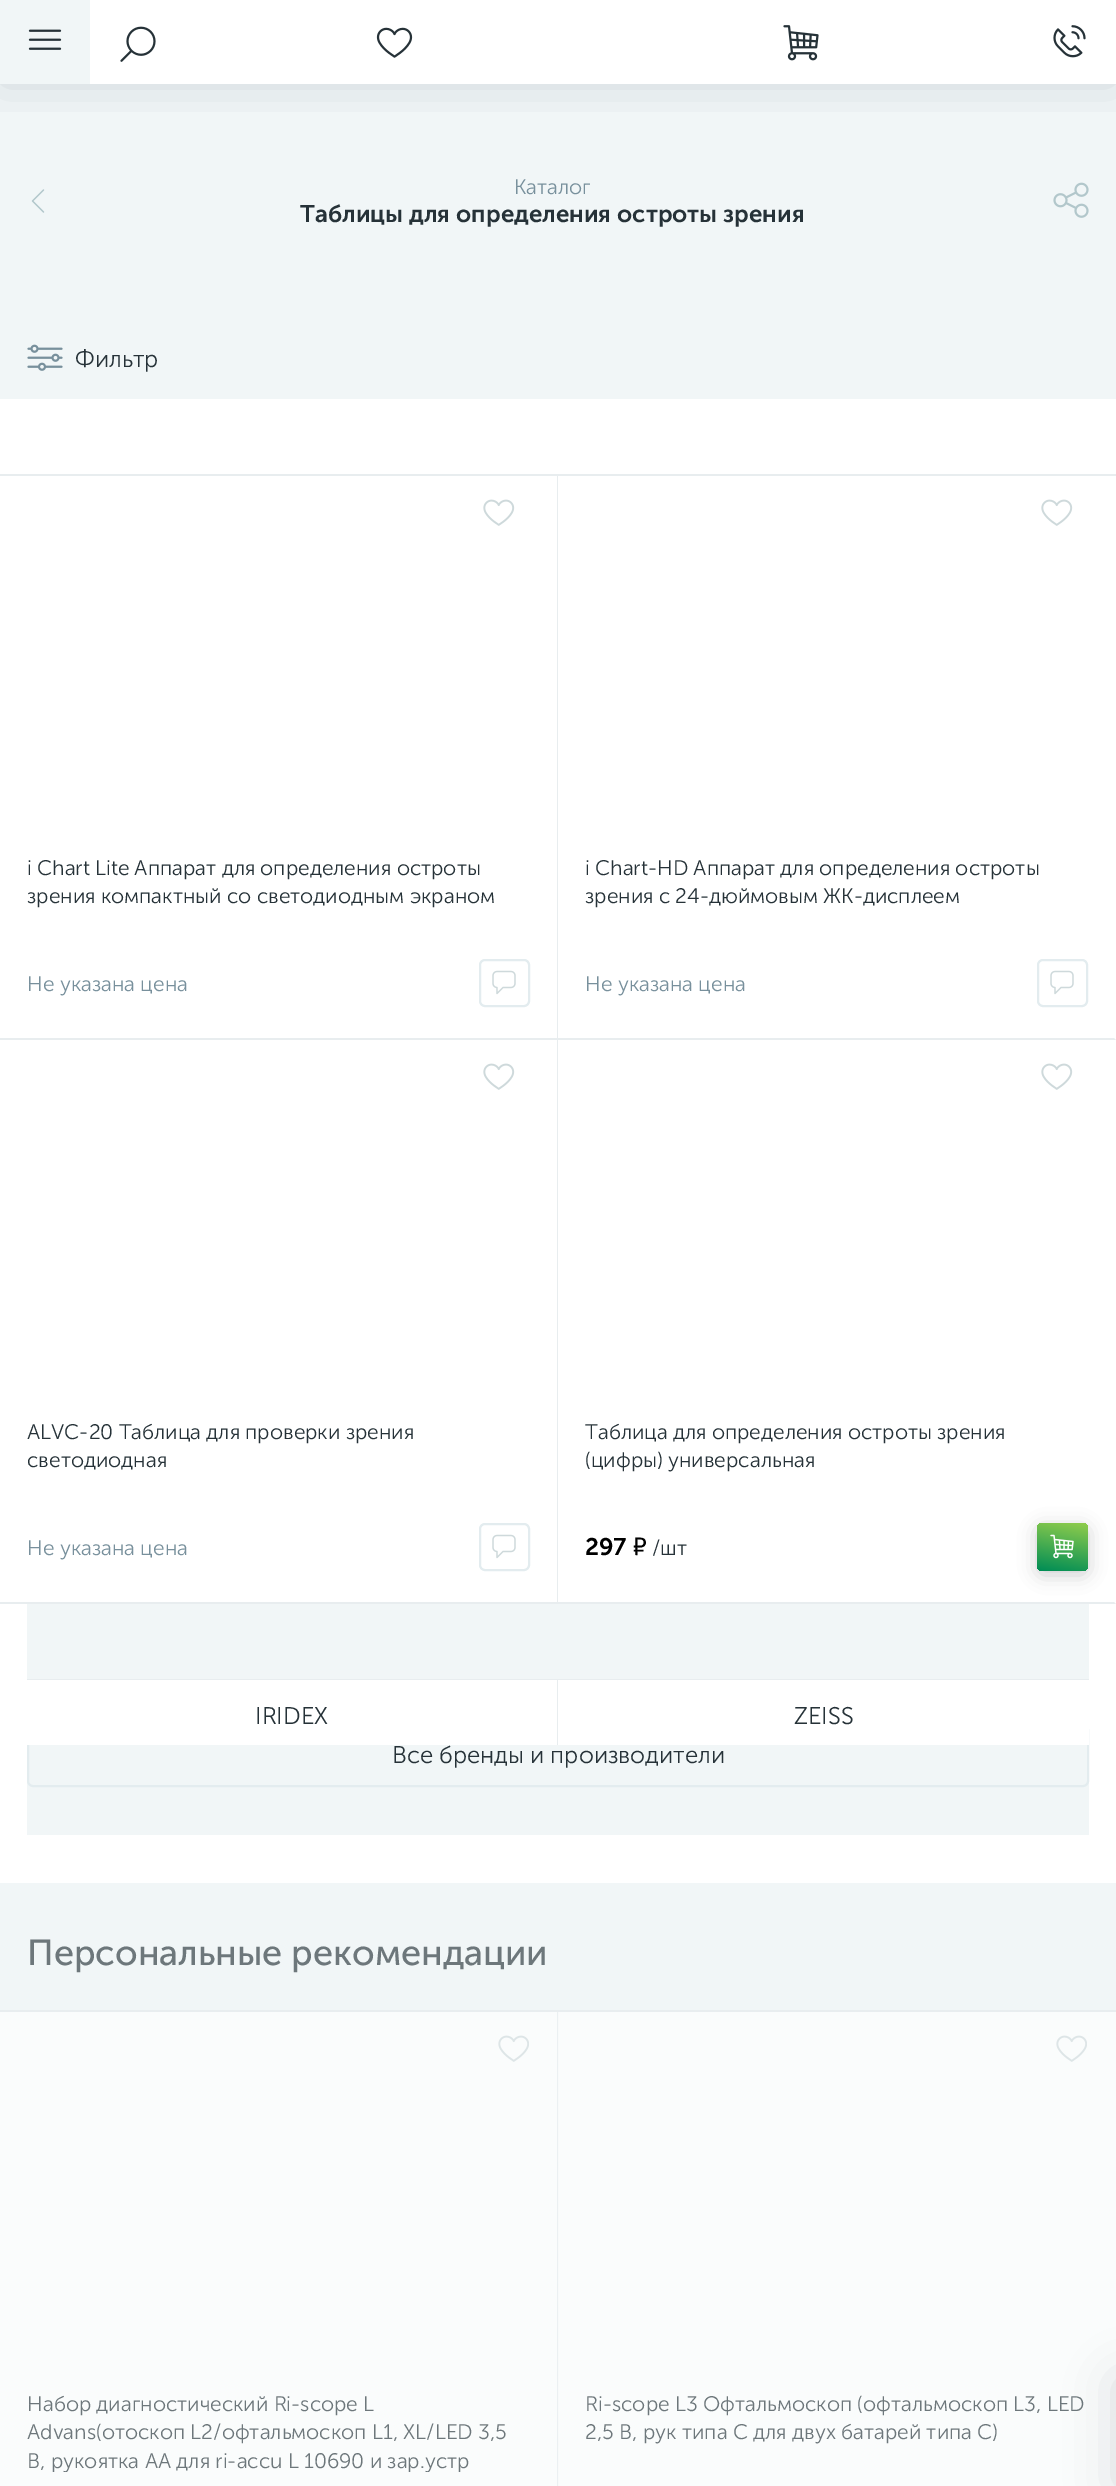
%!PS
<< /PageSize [1116 2486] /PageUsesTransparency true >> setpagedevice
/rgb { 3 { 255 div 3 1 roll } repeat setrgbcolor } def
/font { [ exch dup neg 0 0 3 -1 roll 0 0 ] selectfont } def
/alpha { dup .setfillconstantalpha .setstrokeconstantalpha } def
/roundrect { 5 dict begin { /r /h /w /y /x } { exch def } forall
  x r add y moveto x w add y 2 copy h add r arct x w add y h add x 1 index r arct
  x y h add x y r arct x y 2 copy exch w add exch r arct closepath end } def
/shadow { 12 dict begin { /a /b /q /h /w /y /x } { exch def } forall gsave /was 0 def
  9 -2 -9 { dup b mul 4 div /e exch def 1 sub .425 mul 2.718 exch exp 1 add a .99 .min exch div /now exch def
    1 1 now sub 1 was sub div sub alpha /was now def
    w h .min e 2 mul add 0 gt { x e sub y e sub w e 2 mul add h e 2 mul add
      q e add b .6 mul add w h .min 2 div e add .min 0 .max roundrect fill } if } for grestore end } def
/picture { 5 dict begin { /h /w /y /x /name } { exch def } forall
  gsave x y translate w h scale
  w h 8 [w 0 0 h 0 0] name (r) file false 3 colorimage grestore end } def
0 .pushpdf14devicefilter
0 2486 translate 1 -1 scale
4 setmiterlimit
255 255 255 rgb
0 0 1116 2486 rectfill
241 246 247 rgb
0 84 1116 315 rectfill
gsave
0 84 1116 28 rectclip
38 50 56 rgb
0 0 1116 84 0 24 0.16 shadow
grestore
0 0 90 84 rectfill
(img/1.rgb) 28 29 34 21 picture
(img/2.rgb) 120 26 36 36 picture
(img/3.rgb) 376 27 37 31 picture
(img/4.rgb) 783 25 36 36 picture
(img/5.rgb) 1053 25 33 33 picture
(img/6.rgb) 31 189 14 24 picture
(img/7.rgb) 1053 182 36 36 picture
(img/8.rgb) 27 344 36 27 picture
[
  [0 474 1116 2 232 237 239]
  [557 476 1 1128 232 237 239]
  [0 1038 558 2 232 237 239]
] { aload pop rgb rectfill } forall
(img/9.rgb) 483 499 32 27 picture
227 236 239 rgb
2 setlinewidth
480 960 49 46 5 roundrect stroke
(img/10.rgb) 492 970 24 25 picture
232 237 239 rgb
1116 1040 moveto 558 1040 lineto 558 1038 lineto 1114 1038 lineto closepath fill
(img/9.rgb) 1041 499 32 27 picture
227 236 239 rgb
1038 960 49 46 5 roundrect stroke
(img/10.rgb) 1050 970 24 25 picture
232 237 239 rgb
0 1602 558 2 rectfill
(img/9.rgb) 483 1063 32 27 picture
227 236 239 rgb
480 1524 49 46 5 roundrect stroke
(img/10.rgb) 492 1534 24 25 picture
232 237 239 rgb
1116 1604 moveto 558 1604 lineto 558 1602 lineto 1114 1602 lineto closepath fill
(img/9.rgb) 1041 1063 32 27 picture
38 50 56 rgb
1037 1527 51 48 6 9 0.24 shadow
gsave 1037 1523 51 48 6 roundrect clip newpath
<< /ShadingType 2 /ColorSpace /DeviceRGB /Coords [1057 1574 1067 1519] /Extend [true true] /Function << /FunctionType 2 /Domain [0 1] /C0 [0 0.553 0.333] /C1 [0.569 0.804 0.298] /N 1 >> >> shfill grestore
(img/11.rgb) 1050 1534 24 25 picture
241 246 247 rgb
27 1604 1062 231 rectfill
232 237 239 rgb
27 1679 1062 1 rectfill
227 236 239 rgb
28 1725 1060 61 5 roundrect stroke
[
  [27 1680 530 65 255 255 255]
  [557 1680 1 65 232 237 239]
  [558 1680 531 65 255 255 255]
  [559 2012 557 474 250 252 252]
] { aload pop rgb rectfill } forall
38 50 56 rgb
1116 2379 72 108 0 24 0.16 shadow
[
  [0 1883 1116 127 241 246 247]
  [0 2010 1116 2 232 237 239]
  [0 2012 557 474 250 252 252]
  [557 2012 1 474 235 240 242]
  [558 2012 1 474 248 250 250]
] { aload pop rgb rectfill } forall
(img/12.rgb) 498 2035 31 27 picture
(img/13.rgb) 1056 2035 31 27 picture
/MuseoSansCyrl-Light 21 font
120 144 156 rgb
514 194 moveto (Каталог) show
/MuseoSansCyrl-SemiBold 24 font
38 50 56 rgb
300 222 moveto (Таблицы для определения остроты зрения) show
/MuseoSansCyrl-Light 24 font
75 367 moveto (Фильтр) show
/MuseoSansCyrl-Light 21 font
27 875 moveto (i Chart Lite Аппарат для определения остроты) show
27 903 moveto (зрения компактный со светодиодным экраном) show
120 144 156 rgb
27 991 moveto (Не указана цена) show
38 50 56 rgb
585 875 moveto (i Chart-HD Аппарат для определения остроты) show
585 903 moveto (зрения с 24-дюймовым ЖК-дисплеем) show
120 144 156 rgb
585 991 moveto (Не указана цена) show
38 50 56 rgb
27 1439 moveto (ALVC-20 Таблица для проверки зрения) show
27 1467 moveto (светодиодная) show
120 144 156 rgb
27 1555 moveto (Не указана цена) show
38 50 56 rgb
585 1439 moveto (Таблица для определения остроты зрения) show
585 1467 moveto (\(цифры\) универсальная) show
/MuseoSansCyrl-SemiBold 24 font
0 0 0 rgb
585 1555 moveto (297 ₽) show
/MuseoSansCyrl-Light 21 font
38 50 56 rgb
652 1555 moveto (/шт) show
/MuseoSansCyrl-Light 24 font
[
  [(IRIDEX) 255 1724]
  [(ZEISS) 794 1724]
  [(Все бренды и производители) 392 1763]
] { aload pop moveto show } forall
/MuseoSansCyrl-Regular 36 font
109 119 123 rgb
27 1965 moveto (Персональные рекомендации) show
/MuseoSansCyrl-Light 21 font
27 2411 moveto (Набор диагностический Ri-scope L) show
27 2439 moveto (Advans\(отоскоп L2/офтальмоскоп L1, XL/LED 3,5) show
gsave
27 2390 503 82 rectclip
27 2468 moveto (В, рукоятка АА для ri-accu L 10690 и зар.устр) show
grestore
585 2411 moveto (Ri-scope L3 Офтальмоскоп \(офтальмоскоп L3, LED) show
585 2439 moveto (2,5 В, рук типа С для двух батарей типа С\)) show
.poppdf14devicefilter showpage
